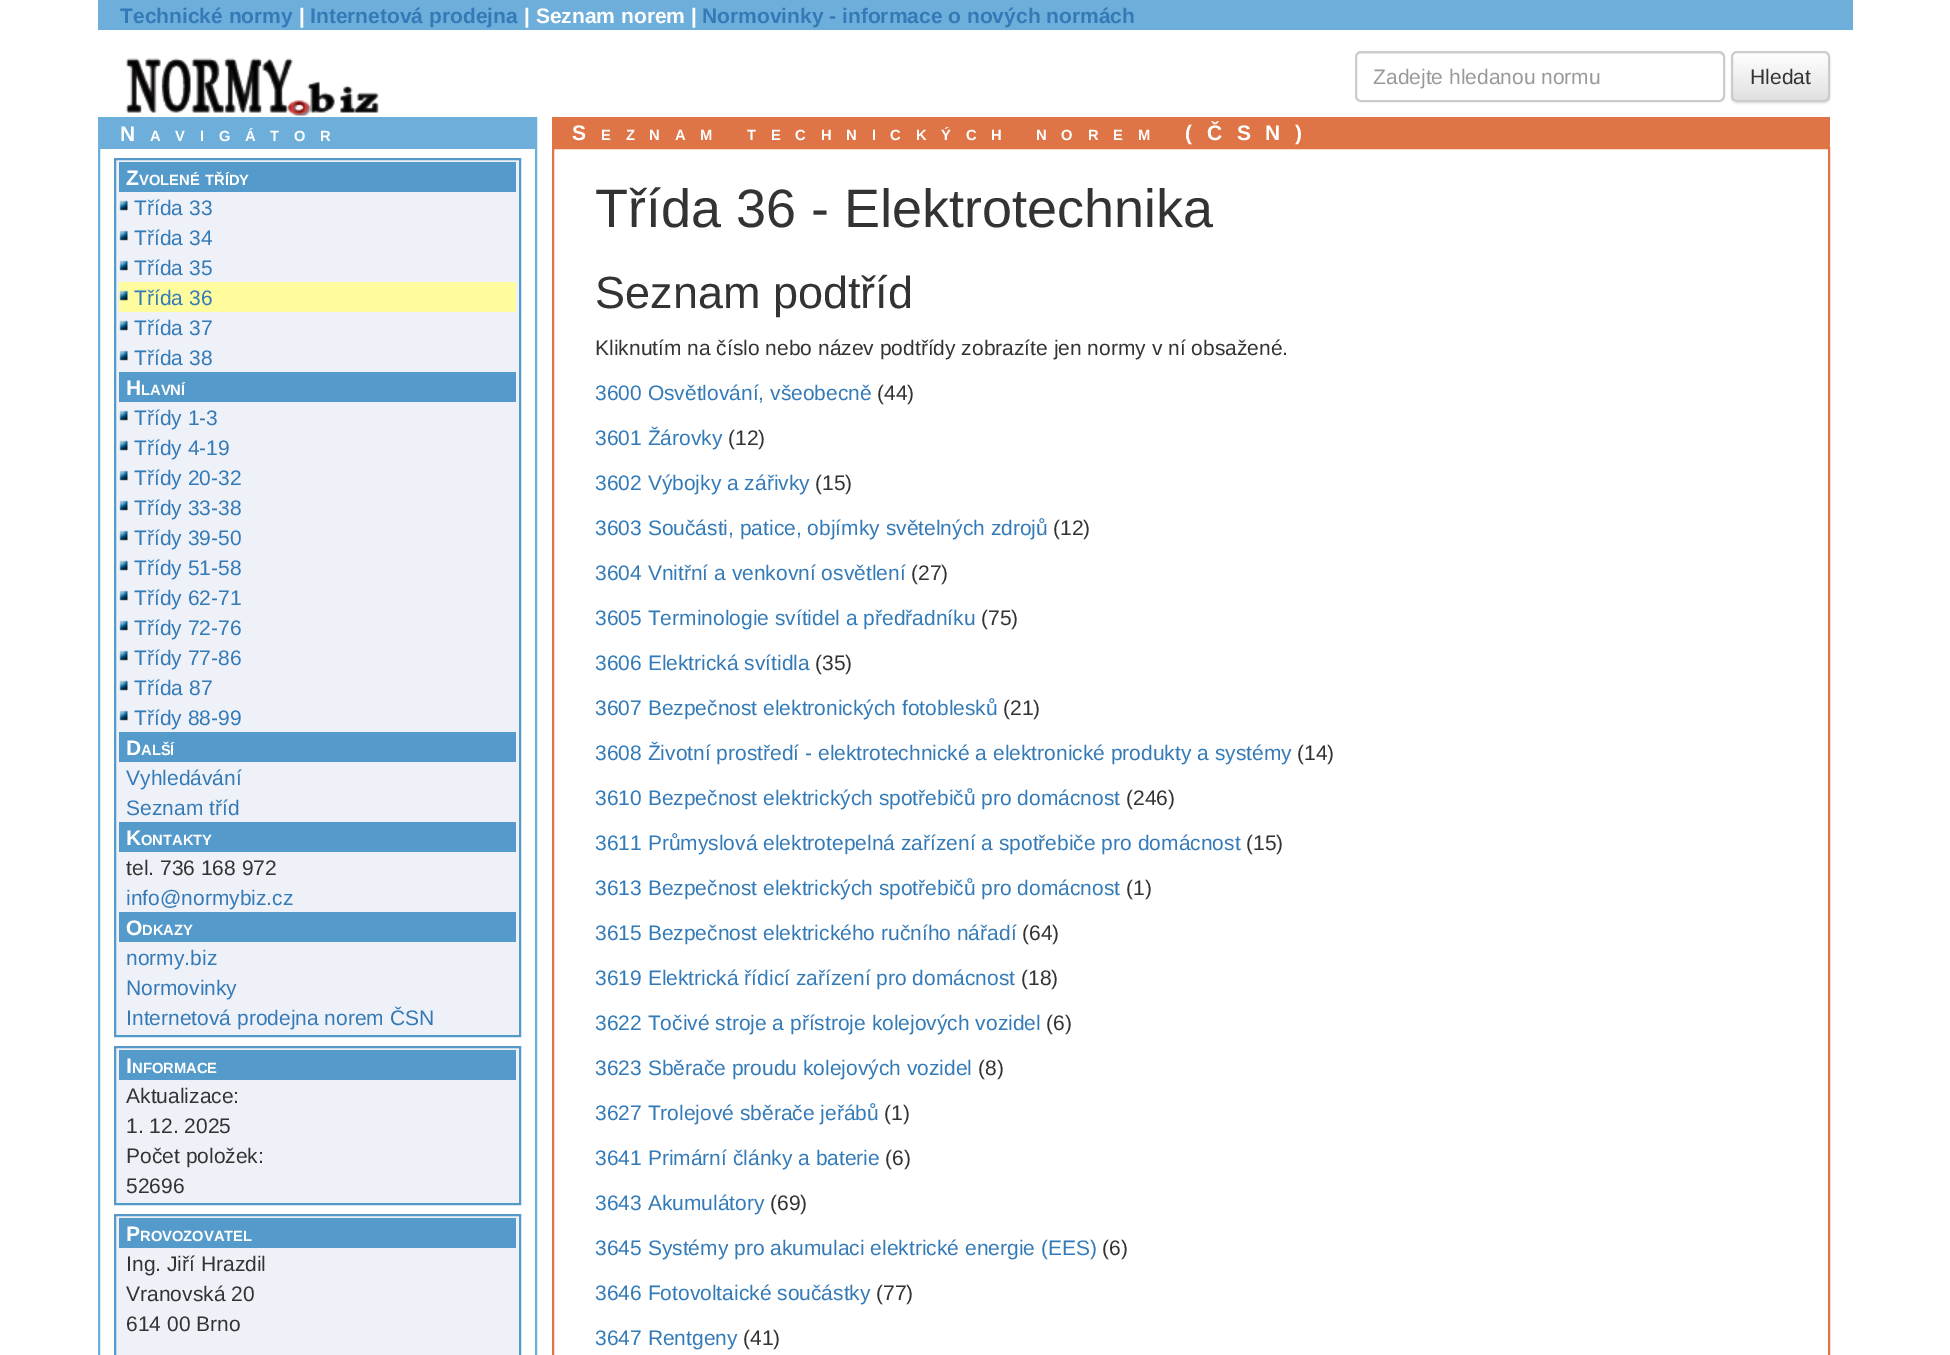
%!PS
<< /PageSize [1950 1355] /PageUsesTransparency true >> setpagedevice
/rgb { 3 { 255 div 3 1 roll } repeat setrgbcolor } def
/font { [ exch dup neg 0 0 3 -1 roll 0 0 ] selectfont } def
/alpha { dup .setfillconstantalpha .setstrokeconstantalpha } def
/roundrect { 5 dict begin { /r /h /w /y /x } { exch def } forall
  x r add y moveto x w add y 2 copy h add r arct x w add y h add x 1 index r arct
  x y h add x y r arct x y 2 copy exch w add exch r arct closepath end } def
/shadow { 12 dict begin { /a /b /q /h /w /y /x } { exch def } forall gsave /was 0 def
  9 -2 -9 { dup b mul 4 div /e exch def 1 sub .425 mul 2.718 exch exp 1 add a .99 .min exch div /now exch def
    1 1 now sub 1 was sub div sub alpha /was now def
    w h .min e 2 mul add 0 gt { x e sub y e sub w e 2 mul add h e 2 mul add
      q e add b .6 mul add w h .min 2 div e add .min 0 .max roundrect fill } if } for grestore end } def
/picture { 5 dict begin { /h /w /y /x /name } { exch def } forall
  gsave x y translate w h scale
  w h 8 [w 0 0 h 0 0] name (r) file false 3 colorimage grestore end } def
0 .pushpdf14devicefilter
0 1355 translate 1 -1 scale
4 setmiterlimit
255 255 255 rgb
0 0 1950 1355 rectfill
109 174 219 rgb
98 0 1755 30 rectfill
(img/1.rgb) 125 58 254 58 picture
236 236 236 rgb
1360 54 moveto 1719 54 lineto 1721 54 1724 56 1724 58 curveto 1724 55 1722 53 1719 53 curveto 1361 53 lineto 1358 53 1356 55 1356 58 curveto 1356 56 1358 54 1360 54 curveto closepath fill
204 204 204 rgb
2 setlinewidth
1356 52 368 49 5 roundrect stroke
0 0 0 rgb
1731 53 99 51 6 1 0.07 shadow
gsave
1731 51 99 51 6 roundrect clip newpath
gsave 1731 53 moveto 1830 53 lineto 1830 101 lineto 1731 101 lineto closepath clip newpath
<< /ShadingType 2 /ColorSpace /DeviceRGB /Coords [1781 53 1781 101] /Extend [true true] /Function << /FunctionType 2 /Domain [0 1] /C0 [1 1 1] /C1 [0.878 0.878 0.878] /N 1 >> >> shfill grestore
grestore
0.15 alpha
255 255 255 rgb
1737 54 moveto 1824 54 lineto 1829 54 1828 62 1828 65 curveto 1828 99 lineto 1829 98 1829 97 1829 96 curveto 1829 58 lineto 1829 55 1827 53 1824 53 curveto 1738 53 lineto 1736 53 1735 54 1734 55 curveto closepath fill
1 alpha
204 204 204 rgb
1732 52 97 49 5 roundrect stroke
109 174 219 rgb
99 118 437 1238 rectstroke
100 119 435 30 rectfill
239 241 248 rgb
115 159 moveto 520 159 lineto 520 1036 lineto 115 1036 lineto closepath gsave fill grestore
84 155 204 rgb
stroke
119 162 397 30 rectfill
(img/2.rgb) 119 200 9 11 picture
(img/2.rgb) 119 230 9 11 picture
(img/2.rgb) 119 260 9 11 picture
255 252 157 rgb
119 282 397 30 rectfill
(img/3.rgb) 119 290 9 11 picture
(img/2.rgb) 119 320 9 11 picture
(img/2.rgb) 119 350 9 11 picture
84 155 204 rgb
119 372 397 30 rectfill
(img/2.rgb) 119 410 9 11 picture
(img/2.rgb) 119 440 9 11 picture
(img/2.rgb) 119 470 9 11 picture
(img/2.rgb) 119 500 9 11 picture
(img/2.rgb) 119 530 9 11 picture
(img/2.rgb) 119 560 9 11 picture
(img/2.rgb) 119 590 9 11 picture
(img/2.rgb) 119 620 9 11 picture
(img/2.rgb) 119 650 9 11 picture
(img/2.rgb) 119 680 9 11 picture
(img/2.rgb) 119 710 9 11 picture
[
  [119 732 397 30 84 155 204]
  [119 822 397 30 84 155 204]
  [119 912 397 30 84 155 204]
] { aload pop rgb rectfill } forall
239 241 248 rgb
115 1047 moveto 520 1047 lineto 520 1204 lineto 115 1204 lineto closepath gsave fill grestore
84 155 204 rgb
stroke
119 1050 397 30 rectfill
239 241 248 rgb
115 1215 moveto 520 1215 lineto 520 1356 lineto 115 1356 lineto closepath gsave fill grestore
84 155 204 rgb
stroke
119 1218 397 30 rectfill
223 117 71 rgb
552 117 1278 30 rectfill
553 148 1276 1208 rectstroke
/LiberationSans-Bold 21 font
51 122 183 rgb
120 23 moveto (Technické normy) show
255 255 255 rgb
299 23 moveto (|) show
51 122 183 rgb
310 23 moveto (Internetová prodejna) show
255 255 255 rgb
524 23 moveto (| Seznam norem |) show
51 122 183 rgb
702 23 moveto (Normovinky - informace o nových normách) show
/LiberationSans-Regular 21 font
153 153 153 rgb
1373 84 moveto (Zadejte hledanou normu) show
51 51 51 rgb
1750 84 moveto (Hledat) show
/LiberationSans-Bold 21 font
255 255 255 rgb
120 141 moveto 14.75 0 (N) ashow
/LiberationSans-Bold 14.75 font
150 141 moveto 14.75 0 (AVIGÁTOR) ashow
/LiberationSans-Bold 21 font
126 185 moveto (Z) show
/LiberationSans-Bold 14.75 font
139 185 moveto (VOLENÉ) show
205 185 moveto (TŘÍDY) show
/LiberationSans-Regular 21 font
51 122 183 rgb
[
  [(Třída 33) 134 215]
  [(Třída 34) 134 245]
  [(Třída 35) 134 275]
  [(Třída 36) 134 305]
  [(Třída 37) 134 335]
  [(Třída 38) 134 365]
] { aload pop moveto show } forall
/LiberationSans-Bold 21 font
255 255 255 rgb
126 395 moveto (H) show
/LiberationSans-Bold 14.75 font
141 395 moveto (LAVNÍ) show
/LiberationSans-Regular 21 font
51 122 183 rgb
[
  [(Třídy 1-3) 134 425]
  [(Třídy 4-19) 134 455]
  [(Třídy 20-32) 134 485]
  [(Třídy 33-38) 134 515]
  [(Třídy 39-50) 134 545]
  [(Třídy 51-58) 134 575]
  [(Třídy 62-71) 134 605]
  [(Třídy 72-76) 134 635]
  [(Třídy 77-86) 134 665]
  [(Třída 87) 134 695]
  [(Třídy 88-99) 134 725]
] { aload pop moveto show } forall
/LiberationSans-Bold 21 font
255 255 255 rgb
126 755 moveto (D) show
/LiberationSans-Bold 14.75 font
141 755 moveto (ALŠÍ) show
/LiberationSans-Regular 21 font
51 122 183 rgb
126 785 moveto (Vyhledávání) show
126 815 moveto (Seznam tříd) show
/LiberationSans-Bold 21 font
255 255 255 rgb
126 845 moveto (K) show
/LiberationSans-Bold 14.75 font
141 845 moveto (ONTAKTY) show
/LiberationSans-Regular 21 font
51 51 51 rgb
126 875 moveto (tel. 736 168 972) show
51 122 183 rgb
126 905 moveto (info@normybiz.cz) show
/LiberationSans-Bold 21 font
255 255 255 rgb
126 935 moveto (O) show
/LiberationSans-Bold 14.75 font
142 935 moveto (DKAZY) show
/LiberationSans-Regular 21 font
51 122 183 rgb
[
  [(normy.biz) 126 965]
  [(Normovinky) 126 995]
  [(Internetová prodejna norem ČSN) 126 1025]
] { aload pop moveto show } forall
/LiberationSans-Bold 21 font
255 255 255 rgb
126 1073 moveto (I) show
/LiberationSans-Bold 14.75 font
132 1073 moveto (NFORMACE) show
/LiberationSans-Regular 21 font
51 51 51 rgb
[
  [(Aktualizace:) 126 1103]
  [(1. 12. 2025) 126 1133]
  [(Počet položek:) 126 1163]
  [(52696) 126 1193]
] { aload pop moveto show } forall
/LiberationSans-Bold 21 font
255 255 255 rgb
126 1241 moveto (P) show
/LiberationSans-Bold 14.75 font
140 1241 moveto (ROVOZOVATEL) show
/LiberationSans-Regular 21 font
51 51 51 rgb
[
  [(Ing. Jiří Hrazdil) 126 1271]
  [(Vranovská 20) 126 1301]
  [(614 00 Brno) 126 1331]
] { aload pop moveto show } forall
/LiberationSans-Bold 21 font
255 255 255 rgb
572 140 moveto 14.75 0 (S) ashow
/LiberationSans-Bold 14.75 font
601 140 moveto 14.75 0 (EZNAM) ashow
747 140 moveto 14.75 0 (TECHNICKÝCH) ashow
1036 140 moveto 14.75 0 (NOREM) ashow
/LiberationSans-Bold 21 font
1185 140 moveto 14.75 0 (\(ČSN\)) ashow
/LiberationSans-Regular 54 font
51 51 51 rgb
595 227 moveto (Třída 36 - Elektrotechnika) show
/LiberationSans-Regular 45 font
595 308 moveto (Seznam podtříd) show
/LiberationSans-Regular 21 font
595 355 moveto (Kliknutím na číslo nebo název podtřídy zobrazíte jen normy v ní obsažené.) show
51 122 183 rgb
595 400 moveto (3600 Osvětlování, všeobecně) show
51 51 51 rgb
877 400 moveto (\(44\)) show
51 122 183 rgb
595 445 moveto (3601 Žárovky) show
51 51 51 rgb
728 445 moveto (\(12\)) show
51 122 183 rgb
595 490 moveto (3602 Výbojky a zářivky) show
51 51 51 rgb
815 490 moveto (\(15\)) show
51 122 183 rgb
595 535 moveto (3603 Součásti, patice, objímky světelných zdrojů) show
51 51 51 rgb
1053 535 moveto (\(12\)) show
51 122 183 rgb
595 580 moveto (3604 Vnitřní a venkovní osvětlení) show
51 51 51 rgb
911 580 moveto (\(27\)) show
51 122 183 rgb
595 625 moveto (3605 Terminologie svítidel a předřadníku) show
51 51 51 rgb
981 625 moveto (\(75\)) show
51 122 183 rgb
595 670 moveto (3606 Elektrická svítidla) show
51 51 51 rgb
815 670 moveto (\(35\)) show
51 122 183 rgb
595 715 moveto (3607 Bezpečnost elektronických fotoblesků) show
51 51 51 rgb
1003 715 moveto (\(21\)) show
51 122 183 rgb
595 760 moveto (3608 Životní prostředí - elektrotechnické a elektronické produkty a systémy) show
51 51 51 rgb
1297 760 moveto (\(14\)) show
51 122 183 rgb
595 805 moveto (3610 Bezpečnost elektrických spotřebičů pro domácnost) show
51 51 51 rgb
1126 805 moveto (\(246\)) show
51 122 183 rgb
595 850 moveto (3611 Průmyslová elektrotepelná zařízení a spotřebiče pro domácnost) show
51 51 51 rgb
1246 850 moveto (\(15\)) show
51 122 183 rgb
595 895 moveto (3613 Bezpečnost elektrických spotřebičů pro domácnost) show
51 51 51 rgb
1126 895 moveto (\(1\)) show
51 122 183 rgb
595 940 moveto (3615 Bezpečnost elektrického ručního nářadí) show
51 51 51 rgb
1022 940 moveto (\(64\)) show
51 122 183 rgb
595 985 moveto (3619 Elektrická řídicí zařízení pro domácnost) show
51 51 51 rgb
1021 985 moveto (\(18\)) show
51 122 183 rgb
595 1030 moveto (3622 Točivé stroje a přístroje kolejových vozidel) show
51 51 51 rgb
1046 1030 moveto (\(6\)) show
51 122 183 rgb
595 1075 moveto (3623 Sběrače proudu kolejových vozidel) show
51 51 51 rgb
978 1075 moveto (\(8\)) show
51 122 183 rgb
595 1120 moveto (3627 Trolejové sběrače jeřábů) show
51 51 51 rgb
884 1120 moveto (\(1\)) show
51 122 183 rgb
595 1165 moveto (3641 Primární články a baterie) show
51 51 51 rgb
885 1165 moveto (\(6\)) show
51 122 183 rgb
595 1210 moveto (3643 Akumulátory) show
51 51 51 rgb
770 1210 moveto (\(69\)) show
51 122 183 rgb
595 1255 moveto (3645 Systémy pro akumulaci elektrické energie \(EES\)) show
51 51 51 rgb
1102 1255 moveto (\(6\)) show
51 122 183 rgb
595 1300 moveto (3646 Fotovoltaické součástky) show
51 51 51 rgb
876 1300 moveto (\(77\)) show
51 122 183 rgb
595 1345 moveto (3647 Rentgeny) show
51 51 51 rgb
743 1345 moveto (\(41\)) show
.poppdf14devicefilter showpage
